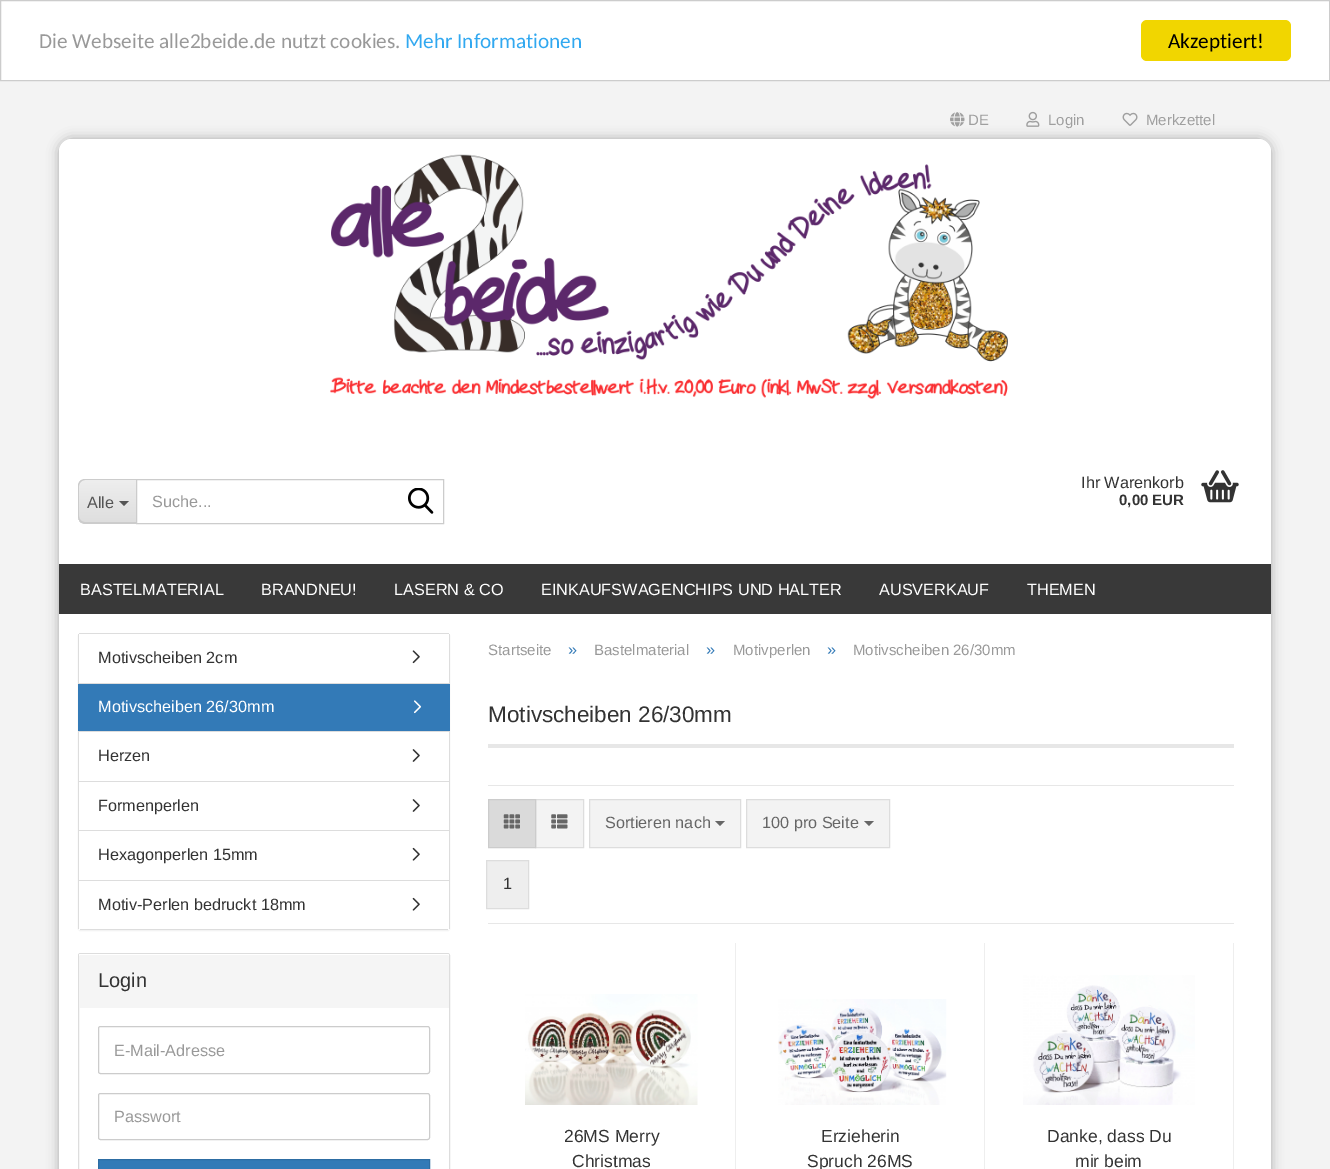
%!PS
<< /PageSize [1330 1169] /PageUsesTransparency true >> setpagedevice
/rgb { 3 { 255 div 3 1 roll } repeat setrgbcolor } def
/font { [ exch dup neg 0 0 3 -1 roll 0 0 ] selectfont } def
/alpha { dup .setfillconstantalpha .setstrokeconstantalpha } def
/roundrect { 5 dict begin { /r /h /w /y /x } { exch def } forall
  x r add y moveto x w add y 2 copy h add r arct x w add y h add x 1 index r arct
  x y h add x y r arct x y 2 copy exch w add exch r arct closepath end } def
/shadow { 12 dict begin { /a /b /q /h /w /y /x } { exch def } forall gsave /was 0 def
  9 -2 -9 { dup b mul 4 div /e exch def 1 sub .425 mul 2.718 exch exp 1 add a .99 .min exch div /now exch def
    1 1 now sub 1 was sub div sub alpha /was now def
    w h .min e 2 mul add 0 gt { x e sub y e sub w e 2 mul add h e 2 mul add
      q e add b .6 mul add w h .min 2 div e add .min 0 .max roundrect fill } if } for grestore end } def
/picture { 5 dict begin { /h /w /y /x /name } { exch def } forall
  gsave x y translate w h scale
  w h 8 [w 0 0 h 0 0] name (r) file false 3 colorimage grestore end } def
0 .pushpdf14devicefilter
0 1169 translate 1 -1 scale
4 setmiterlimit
243 243 243 rgb
0 0 1330 1169 rectfill
255 255 255 rgb
0.5 0.5 moveto 1329.5 0.5 lineto 1329.5 80.5 lineto 0.5 80.5 lineto closepath gsave fill grestore
204 204 204 rgb
stroke
241 214 0 rgb
1141 20 150 41 6 roundrect fill
0 0 0 rgb
59 139 1212 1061 13 6 0.3 shadow
255 255 255 rgb
59 139 1212 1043 13 roundrect fill
72 139 moveto 1258 139 lineto 1265 139 1271 145 1271 152 curveto 1271 611.5 lineto 1271 613 1270 614 1268.5 614 curveto 61.5 614 lineto 60 614 59 613 59 611.5 curveto 59 152 lineto 59 145 65 139 72 139 curveto closepath fill
(img/1.rgb) 950 112 15 15 picture
(img/2.rgb) 1026 111 14 16 picture
(img/3.rgb) 1122 112 16 14 picture
(img/4.rgb) 330 154 678 245 picture
gsave
86 479 moveto 136 479 lineto 136 524 lineto 86 524 lineto 81.5 524 78 520.5 78 516 curveto 78 487 lineto 78 482.5 81.5 479 86 479 curveto closepath clip newpath
gsave 78 480 moveto 136 480 lineto 136 523 lineto 78 523 lineto closepath clip newpath
<< /ShadingType 2 /ColorSpace /DeviceRGB /Coords [108 480 108 523] /Extend [true true] /Function << /FunctionType 2 /Domain [0 1] /C0 [0.933 0.933 0.933] /C1 [0.871 0.871 0.871] /N 1 >> >> shfill grestore
grestore
204 204 204 rgb
85 479 moveto 136 479 lineto 136 524 lineto 85 524 lineto 81 524 78 520 78 516 curveto 78 486 lineto 78 482 81 479 85 479 curveto closepath 85 480 moveto 136 480 lineto 136 522 lineto 85 522 lineto 82 522 79 520 79 516 curveto 79 486 lineto 79 483 82 480 85 480 curveto closepath eofill
85 85 85 rgb
119 501 moveto 129 501 lineto 124 506 lineto closepath fill
204 204 204 rgb
136.5 479.5 307 44 rectstroke
(img/5.rgb) 408 488 26 26 picture
(img/6.rgb) 1201 470 38 33 picture
57 57 57 rgb
59 564 1212 50 rectfill
0 0 0 rgb
78 634 372 297 2.5 0.5 0.05 shadow
255 255 255 rgb
78 633 372 297 2.5 roundrect fill
[
  [79 633 370 1 221 221 221]
  [449 634 1 295 221 221 221]
  [78 634 1 295 221 221 221]
  [79 683 370 1 221 221 221]
] { aload pop rgb rectfill } forall
(img/7.rgb) 412 650 8 14 picture
79 731 370 1 rectfill
51 122 183 rgb
78 684 372 47 rectfill
(img/8.rgb) 414 700 8 14 picture
221 221 221 rgb
79 781 370 1 rectfill
(img/9.rgb) 412 749 8 13 picture
79 830 370 1 rectfill
(img/9.rgb) 412 799 8 13 picture
79 880 370 1 rectfill
(img/10.rgb) 412 847 8 14 picture
80 929 368 1 rectfill
(img/10.rgb) 412 897 8 14 picture
78.5 953.5 371 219 2 roundrect stroke
245 245 245 rgb
80 954 moveto 448 954 lineto 448.5 954 449 954.5 449 955 curveto 449 1008 lineto 79 1008 lineto 79 955 lineto 79 954.5 79.5 954 80 954 curveto closepath fill
255 255 255 rgb
80 955 moveto 448 955 lineto 449 956 lineto 449 955 lineto 448 954 lineto 80 954 lineto 79 954 79 955 79 956 curveto closepath fill
204 204 204 rgb
98.5 1026.5 331 47 2 roundrect stroke
98.5 1093.5 331 46 2 roundrect stroke
51 122 183 rgb
98.5 1159.5 moveto 429.5 1159.5 lineto 429.5 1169.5 lineto 98.5 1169.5 lineto closepath gsave fill grestore
45 109 163 rgb
stroke
[
  [488 744 746 4 231 231 231]
  [488 785 746 1 231 231 231]
  [488 923 746 1 231 231 231]
] { aload pop rgb rectfill } forall
243 243 243 rgb
535.5 799.5 moveto 583.5 799.5 lineto 583.5 847.5 lineto 535.5 847.5 lineto closepath gsave fill grestore
221 221 221 rgb
stroke
218 218 218 rgb
488.5 799.5 moveto 535.5 799.5 lineto 535.5 847.5 lineto 488.5 847.5 lineto closepath gsave fill grestore
204 204 204 rgb
stroke
(img/11.rgb) 503 814 17 15 picture
(img/12.rgb) 551 814 17 15 picture
243 243 243 rgb
589.5 799.5 moveto 740.5 799.5 lineto 740.5 847.5 lineto 589.5 847.5 lineto closepath gsave fill grestore
221 221 221 rgb
stroke
102 102 102 rgb
715 821 moveto 725 821 lineto 720 826 lineto closepath fill
243 243 243 rgb
746.5 799.5 moveto 889.5 799.5 lineto 889.5 847.5 lineto 746.5 847.5 lineto closepath gsave fill grestore
221 221 221 rgb
stroke
102 102 102 rgb
864 821 moveto 874 821 lineto 869 826 lineto closepath fill
238 238 238 rgb
486.5 860.5 moveto 528.5 860.5 lineto 528.5 908.5 lineto 486.5 908.5 lineto closepath gsave fill grestore
221 221 221 rgb
stroke
238 238 238 rgb
735 943 1 226 rectfill
(img/13.rgb) 525 994 173 111 picture
984 943 1 226 rectfill
(img/14.rgb) 778 999 169 106 picture
1233 943 1 226 rectfill
(img/15.rgb) 1023 975 172 130 picture
/Carlito-Regular 21.25 font
153 153 153 rgb
39 48 moveto (Die Webseite alle2beide.de nutzt cookies.) show
49 168 240 rgb
405 48 moveto (Mehr Informationen) show
0 0 0 rgb
1168 48 moveto (Akzeptiert!) show
/LiberationSans-Regular 15 font
159 159 159 rgb
[
  [(DE) 968 125]
  [(Login) 1048 125]
  [(Merkzettel) 1146 125]
] { aload pop moveto show } forall
/LiberationSans-Regular 16.25 font
85 85 85 rgb
87 508 moveto (Alle) show
153 153 153 rgb
152 507 moveto (Suche...) show
51 51 51 rgb
1081 488 moveto (Ihr Warenkorb) show
/LiberationSans-Bold 15 font
1119 505 moveto (0,00 EUR) show
/LiberationSans-Regular 16.25 font
255 255 255 rgb
[
  [(BASTELMATERIAL) 80 595]
  [(BRANDNEU!) 261 595]
  [(LASERN & CO) 394 595]
  [(EINKAUFSWAGENCHIPS UND HALTER) 541 595]
  [(AUSVERKAUF) 879 595]
  [(THEMEN) 1027 595]
] { aload pop moveto show } forall
51 51 51 rgb
98 663 moveto (Motivscheiben 2cm) show
255 255 255 rgb
98 712 moveto (Motivscheiben 26/30mm) show
51 51 51 rgb
[
  [(Herzen) 98 761]
  [(Formenperlen) 98 811]
  [(Hexagonperlen 15mm) 98 860]
  [(Motiv-Perlen bedruckt 18mm) 98 910]
] { aload pop moveto show } forall
/LiberationSans-Regular 20 font
98 987 moveto (Login) show
/LiberationSans-Regular 16.25 font
153 153 153 rgb
114 1056 moveto (E-Mail-Adresse) show
114 1122 moveto (Passwort) show
/LiberationSans-Regular 15 font
488 655 moveto (Startseite) show
/LiberationSans-Regular 16.25 font
51 122 183 rgb
568 655 moveto (») show
/LiberationSans-Regular 15 font
153 153 153 rgb
594 655 moveto (Bastelmaterial) show
/LiberationSans-Regular 16.25 font
51 122 183 rgb
706 655 moveto (») show
/LiberationSans-Regular 15 font
153 153 153 rgb
733 655 moveto (Motivperlen) show
/LiberationSans-Regular 16.25 font
51 122 183 rgb
827 655 moveto (») show
/LiberationSans-Regular 15 font
153 153 153 rgb
853 655 moveto (Motivscheiben 26/30mm) show
/LiberationSans-Regular 22.5 font
51 51 51 rgb
488 722 moveto (Motivscheiben 26/30mm) show
/LiberationSans-Regular 16.25 font
102 102 102 rgb
605 828 moveto (Sortieren nach) show
762 828 moveto (100 pro Seite) show
51 51 51 rgb
503 889 moveto (1) show
/LiberationSans-Regular 17.5 font
[
  [(26MS Merry) 564 1142]
  [(Christmas) 572 1167]
  [(Erzieherin) 821 1142]
  [(Spruch 26MS) 807 1167]
  [(Danke, dass Du) 1047 1142]
  [(mir beim) 1075 1167]
] { aload pop moveto show } forall
.poppdf14devicefilter showpage
